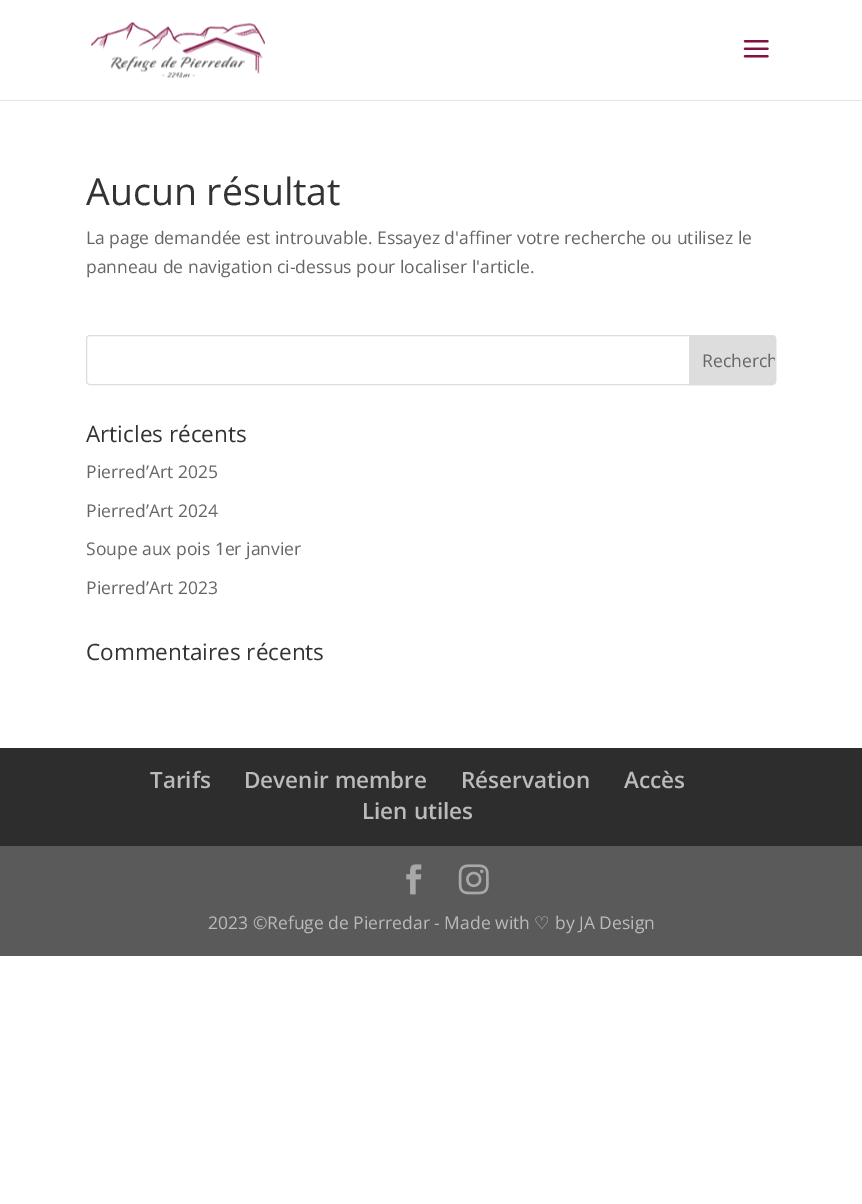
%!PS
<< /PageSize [862 1204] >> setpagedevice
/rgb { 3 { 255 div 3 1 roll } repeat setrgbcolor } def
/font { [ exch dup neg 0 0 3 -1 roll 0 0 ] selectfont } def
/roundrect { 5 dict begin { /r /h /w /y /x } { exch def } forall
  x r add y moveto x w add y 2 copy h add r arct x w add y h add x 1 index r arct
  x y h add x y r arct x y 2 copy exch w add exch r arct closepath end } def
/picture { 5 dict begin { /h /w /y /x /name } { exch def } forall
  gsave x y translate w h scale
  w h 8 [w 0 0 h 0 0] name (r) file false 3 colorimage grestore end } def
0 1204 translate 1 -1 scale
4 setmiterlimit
255 255 255 rgb
0 0 862 1204 rectfill
230 230 230 rgb
0 100 moveto 0 101 lineto 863 101 lineto 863 1 lineto 862 1 lineto 862 100 lineto closepath fill
(img/1.rgb) 91 22 174 56 picture
(img/2.rgb) 743 40 26 18 picture
221 221 221 rgb
86.5 335.5 689 49 3.5 roundrect stroke
689.5 335.5 moveto 772 335.5 lineto 774 335.5 775.5 337 775.5 339 curveto 775.5 381 lineto 775.5 383 774 384.5 772 384.5 curveto 689.5 384.5 lineto closepath gsave fill grestore
stroke
45 45 45 rgb
0 748 862 98 rectfill
90 90 90 rgb
0 846 862 110 rectfill
(img/3.rgb) 406 864 16 31 picture
(img/4.rgb) 458 864 31 31 picture
/OpenSans-Regular 37.5 font
51 51 51 rgb
86 205 moveto (Aucun résultat) show
/OpenSans-Regular 17.5 font
102 102 102 rgb
86 244 moveto (La page demandée est introuvable. Essayez d'affiner votre recherche ou utilisez le) show
86 273 moveto (panneau de navigation ci-dessus pour localiser l'article.) show
gsave
690 336 moveto 772.5 336 lineto 774 336 775 337 775 338.5 curveto 775 381.5 lineto 775 383 774 384 772.5 384 curveto 690 384 lineto closepath clip newpath
702 367 moveto (Recherch) show
grestore
/OpenSans-Regular 22.5 font
51 51 51 rgb
86 442 moveto (Articles récents) show
/OpenSans-Regular 17.5 font
102 102 102 rgb
[
  [(Pierred’Art 2025) 86 478]
  [(Pierred’Art 2024) 86 517]
  [(Soupe aux pois 1er janvier) 86 555]
  [(Pierred’Art 2023) 86 594]
] { aload pop moveto show } forall
/OpenSans-Regular 22.5 font
51 51 51 rgb
86 660 moveto (Commentaires récents) show
/OpenSans-SemiBold 22.5 font
187 187 187 rgb
[
  [(Tarifs) 150 788]
  [(Devenir membre) 244 788]
  [(Réservation) 461 788]
  [(Accès) 624 788]
  [(Lien utiles) 362 819]
] { aload pop moveto show } forall
/OpenSans-Regular 17.5 font
208 929 moveto (2023 ©Refuge de Pierredar - Made with) show
/DejaVuSans-Regular 17.5 font
534 929 moveto (♡) show
/OpenSans-Regular 17.5 font
555 929 moveto (by JA Design) show
showpage
